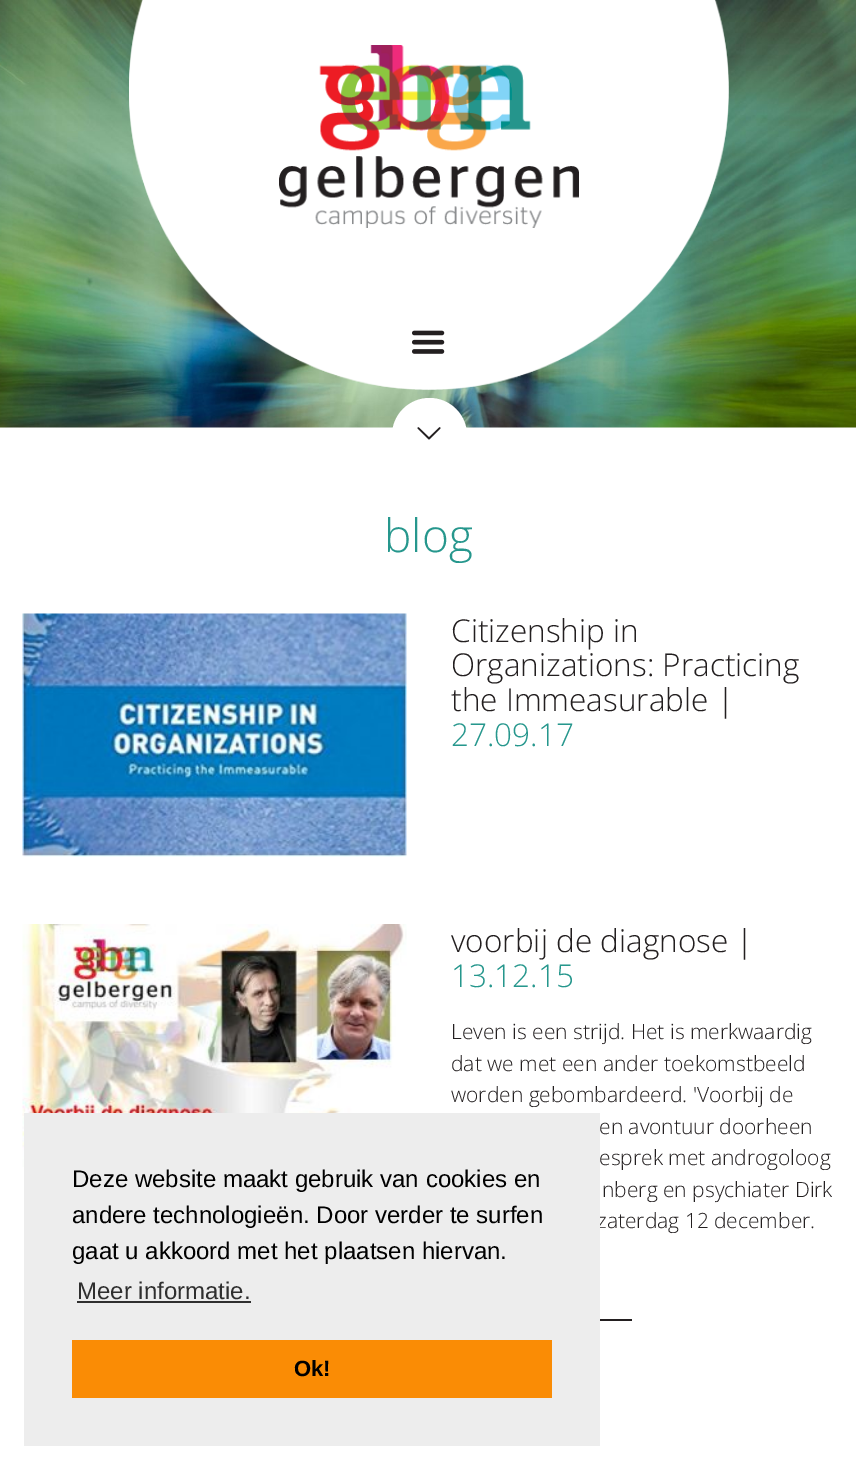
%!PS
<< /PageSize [856 1469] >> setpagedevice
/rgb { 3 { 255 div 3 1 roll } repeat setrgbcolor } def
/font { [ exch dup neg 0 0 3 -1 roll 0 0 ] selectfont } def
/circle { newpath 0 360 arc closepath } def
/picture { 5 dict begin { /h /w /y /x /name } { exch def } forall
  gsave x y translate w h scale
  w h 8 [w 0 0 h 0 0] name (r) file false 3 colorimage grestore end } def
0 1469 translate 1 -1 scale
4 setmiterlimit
255 255 255 rgb
0 0 856 1469 rectfill
(img/1.rgb) 0 0 856 428 picture
(img/2.rgb) 129 0 600 390 picture
(img/3.rgb) 129 0 600 390 picture
(img/4.rgb) 279 45 300 183 picture
(img/5.rgb) 412 330 33 24 picture
429.5 435.5 37.5 circle fill
(img/6.rgb) 417 427 24 13 picture
(img/7.rgb) 22 613 385 244 picture
(img/8.rgb) 22 924 385 243 picture
35 31 32 rgb
600 1319 32 2 rectfill
/OpenSans-Light 46 font
38 151 141 rgb
384 552 moveto (blog) show
/OpenSans-Light 31.5 font
35 31 32 rgb
[
  [(Citizenship in) 451 642]
  [(Organizations: Practicing) 451 676]
  [(the Immeasurable |) 451 711]
] { aload pop moveto show } forall
38 151 141 rgb
451 746 moveto (27.09.17) show
35 31 32 rgb
451 952 moveto (voorbij de diagnose |) show
38 151 141 rgb
451 987 moveto (13.12.15) show
/OpenSans-Light 21 font
35 31 32 rgb
[
  [(Leven is een strijd. Het is merkwaardig) 451 1039]
  [(dat we met een ander toekomstbeeld) 451 1071]
  [(worden gebombardeerd. 'Voorbij de) 451 1102]
  [(en avontuur doorheen) 599 1134]
  [(esprek met androgoloog) 599 1165]
  [(nberg en psychiater Dirk) 602 1197]
  [(zaterdag 12 december.) 597 1228]
] { aload pop moveto show } forall
237 237 237 rgb
24 1113 576 333 rectfill
/LiberationSans-Regular 24 font
0 0 0 rgb
[
  [(Deze website maakt gebruik van cookies en) 72 1187]
  [(andere technologieën. Door verder te surfen) 72 1223]
  [(gaat u akkoord met het plaatsen hiervan.) 72 1259]
] { aload pop moveto show } forall
47 47 47 rgb
77 1299 moveto (Meer informatie.) show
77 1301 174 2 rectfill
250 140 5 rgb
72 1340 480 58 rectfill
/LiberationSans-Bold 22 font
0 0 0 rgb
294 1376 moveto (Ok!) show
showpage
